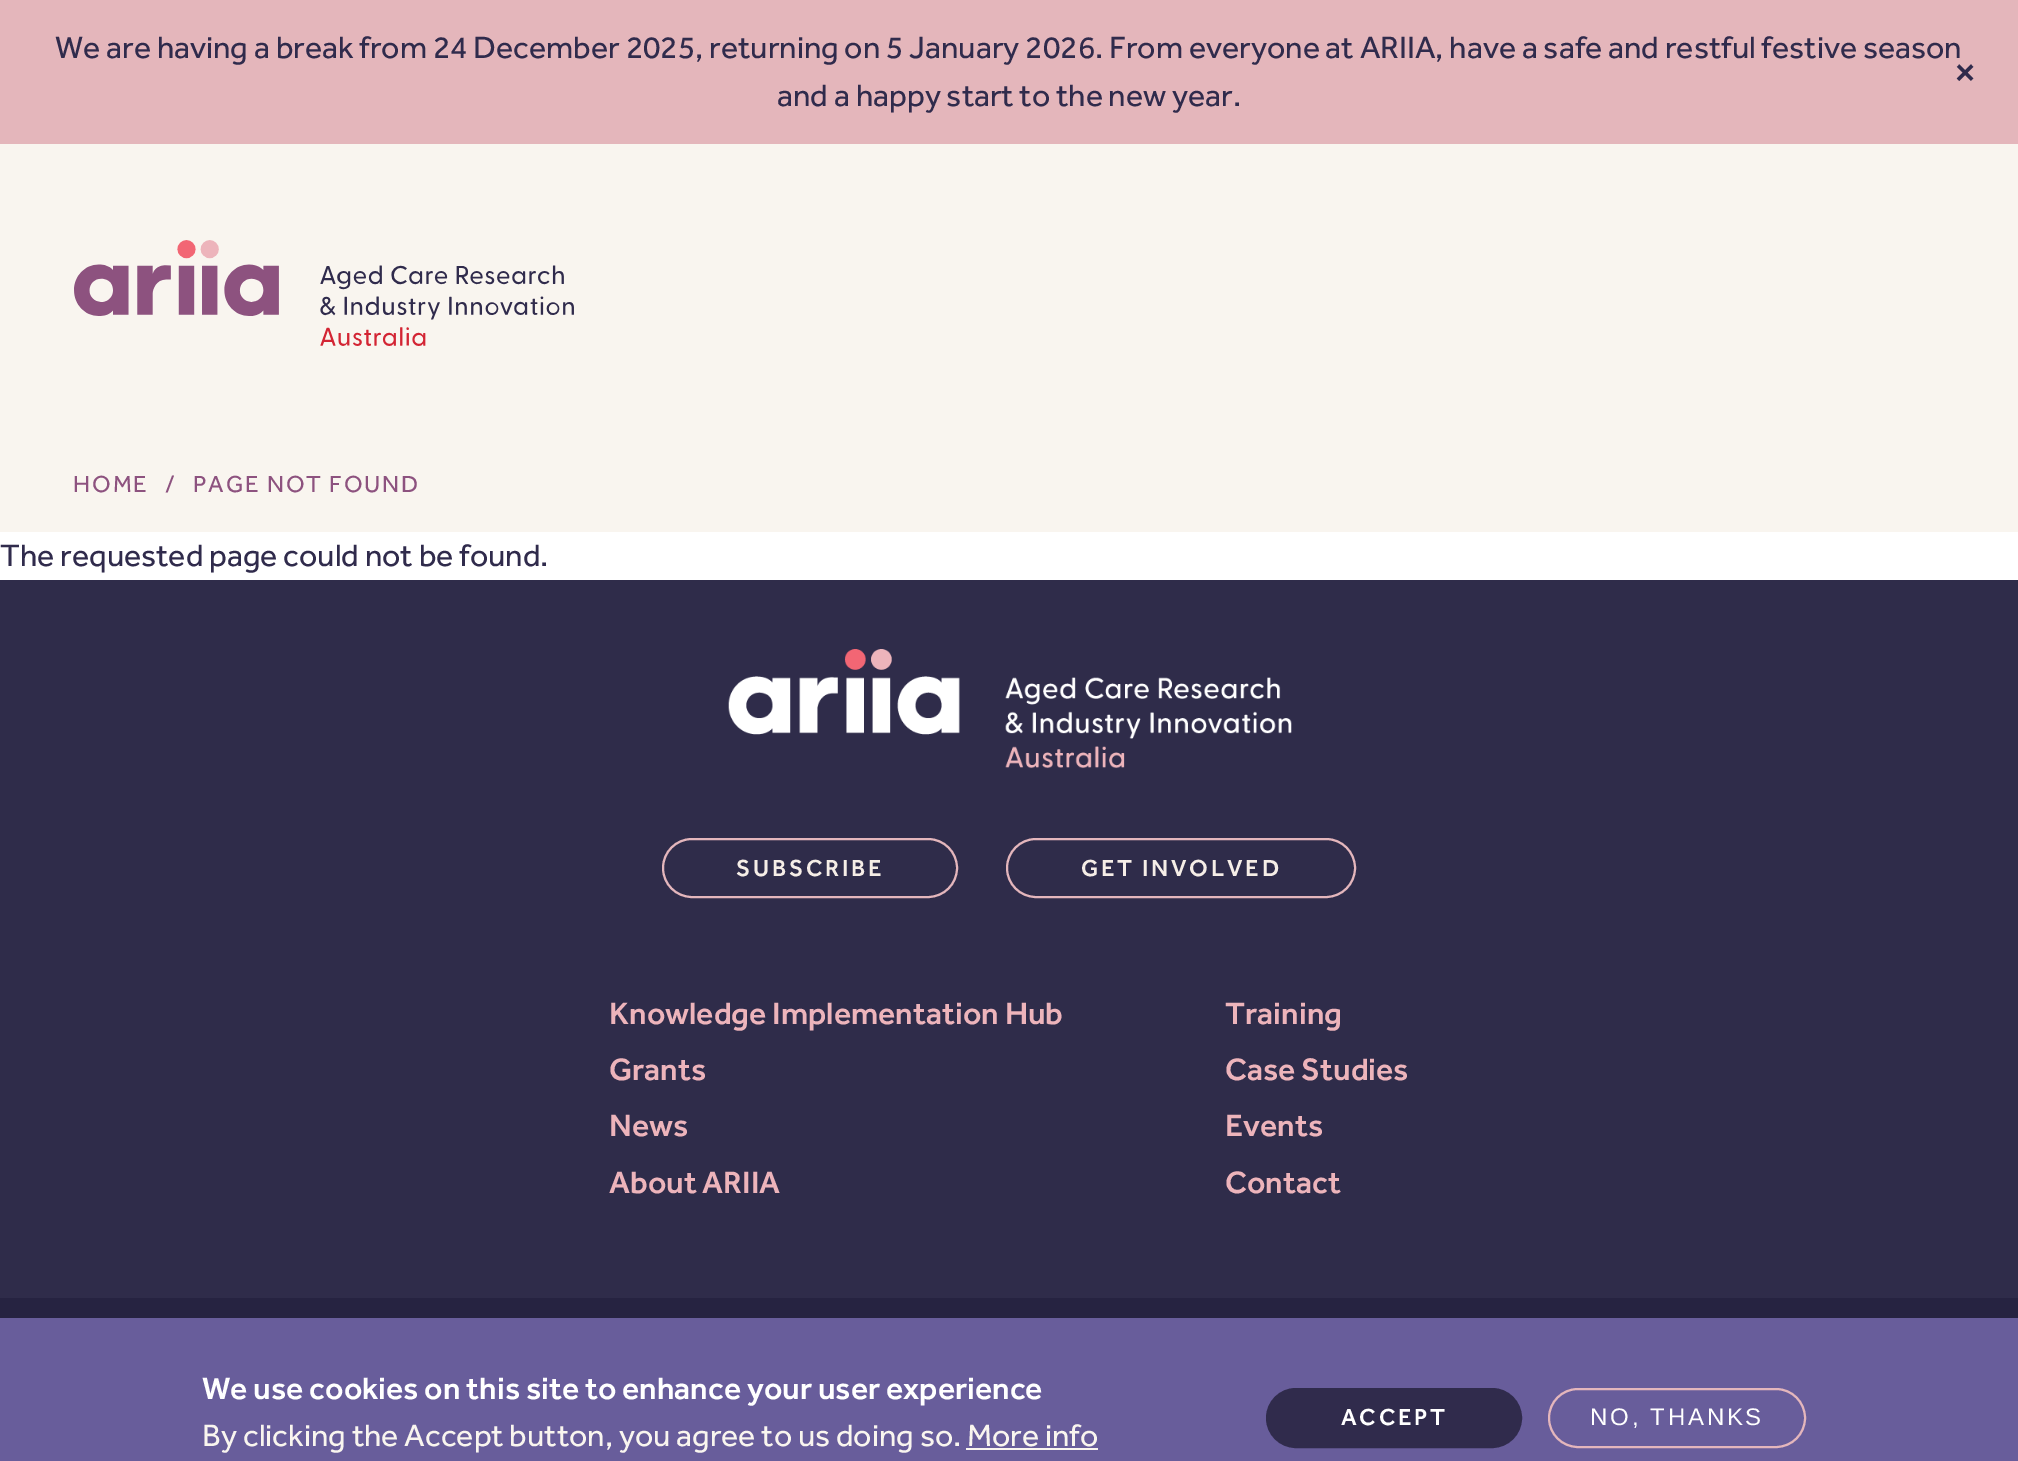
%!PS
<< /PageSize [2018 1461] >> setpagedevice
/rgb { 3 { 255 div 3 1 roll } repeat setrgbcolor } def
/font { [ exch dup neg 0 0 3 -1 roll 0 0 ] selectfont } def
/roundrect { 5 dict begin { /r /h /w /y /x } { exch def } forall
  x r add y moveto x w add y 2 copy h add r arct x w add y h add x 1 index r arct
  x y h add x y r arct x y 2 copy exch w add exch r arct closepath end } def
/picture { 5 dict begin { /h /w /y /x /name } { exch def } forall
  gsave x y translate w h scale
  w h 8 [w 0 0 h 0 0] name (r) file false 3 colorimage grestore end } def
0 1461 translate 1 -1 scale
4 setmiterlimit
255 255 255 rgb
0 0 2018 1461 rectfill
228 182 187 rgb
0 0 2018 144 rectfill
249 245 239 rgb
0 144 2018 388 rectfill
(img/1.rgb) 74 240 500 106 picture
47 44 74 rgb
0 580 2018 718 rectfill
(img/2.rgb) 728 649 564 120 picture
228 182 188 rgb
2 setlinewidth
663 839 294 58 29 roundrect stroke
1007 839 348 58 29 roundrect stroke
[
  [0 1298 2018 20 38 35 65]
  [0 1318 2018 143 104 93 155]
  [966 1448 132 2 249 245 239]
] { aload pop rgb rectfill } forall
48 43 76 rgb
1267 1389 254 58 29 roundrect gsave fill grestore
stroke
228 182 188 rgb
1549 1389 256 58 29 roundrect stroke
/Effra-Regular 32 font
48 43 76 rgb
55 58 moveto (We are having a break from 24 December 2025, returning on 5 January 2026. From everyone at ARIIA, have a safe and restful festive season) show
777 106 moveto (and a happy start to the new year.) show
/Effra-Regular 48 font
1952 88 moveto (×) show
/Effra-Regular 24 font
141 82 127 rgb
73 492 moveto 1.9 0 (HOME) ashow
165 492 moveto 1.9 0 (/) ashow
193 492 moveto 1.9 0 (PAGE NOT FOUND) ashow
/Effra-Regular 32 font
48 43 76 rgb
0 566 moveto (The requested page could not be found.) show
/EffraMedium-Medium 24 font
246 238 231 rgb
736 876 moveto 2.75 0 (SUBSCRIBE) ashow
1081 876 moveto 2.75 0 (GET INVOLVED) ashow
/EffraMedium-Medium 32 font
237 180 187 rgb
[
  [(Knowledge Implementation Hub) 609 1024]
  [(Training) 1225 1024]
  [(Grants) 609 1080]
  [(Case Studies) 1225 1080]
  [(News) 609 1136]
  [(Events) 1225 1136]
  [(About ARIIA) 609 1193]
  [(Contact) 1225 1193]
] { aload pop moveto show } forall
255 255 255 rgb
202 1399 moveto (We use cookies on this site to enhance your user experience) show
/Effra-Regular 32 font
249 245 239 rgb
202 1446 moveto (By clicking the Accept button, you agree to us doing so. More info) show
/EffraMedium-Medium 24 font
255 255 255 rgb
1341 1425 moveto 2.75 0 (ACCEPT) ashow
/LiberationSans-Regular 24 font
1590 1425 moveto 2.75 0 (NO, THANKS) ashow
showpage
